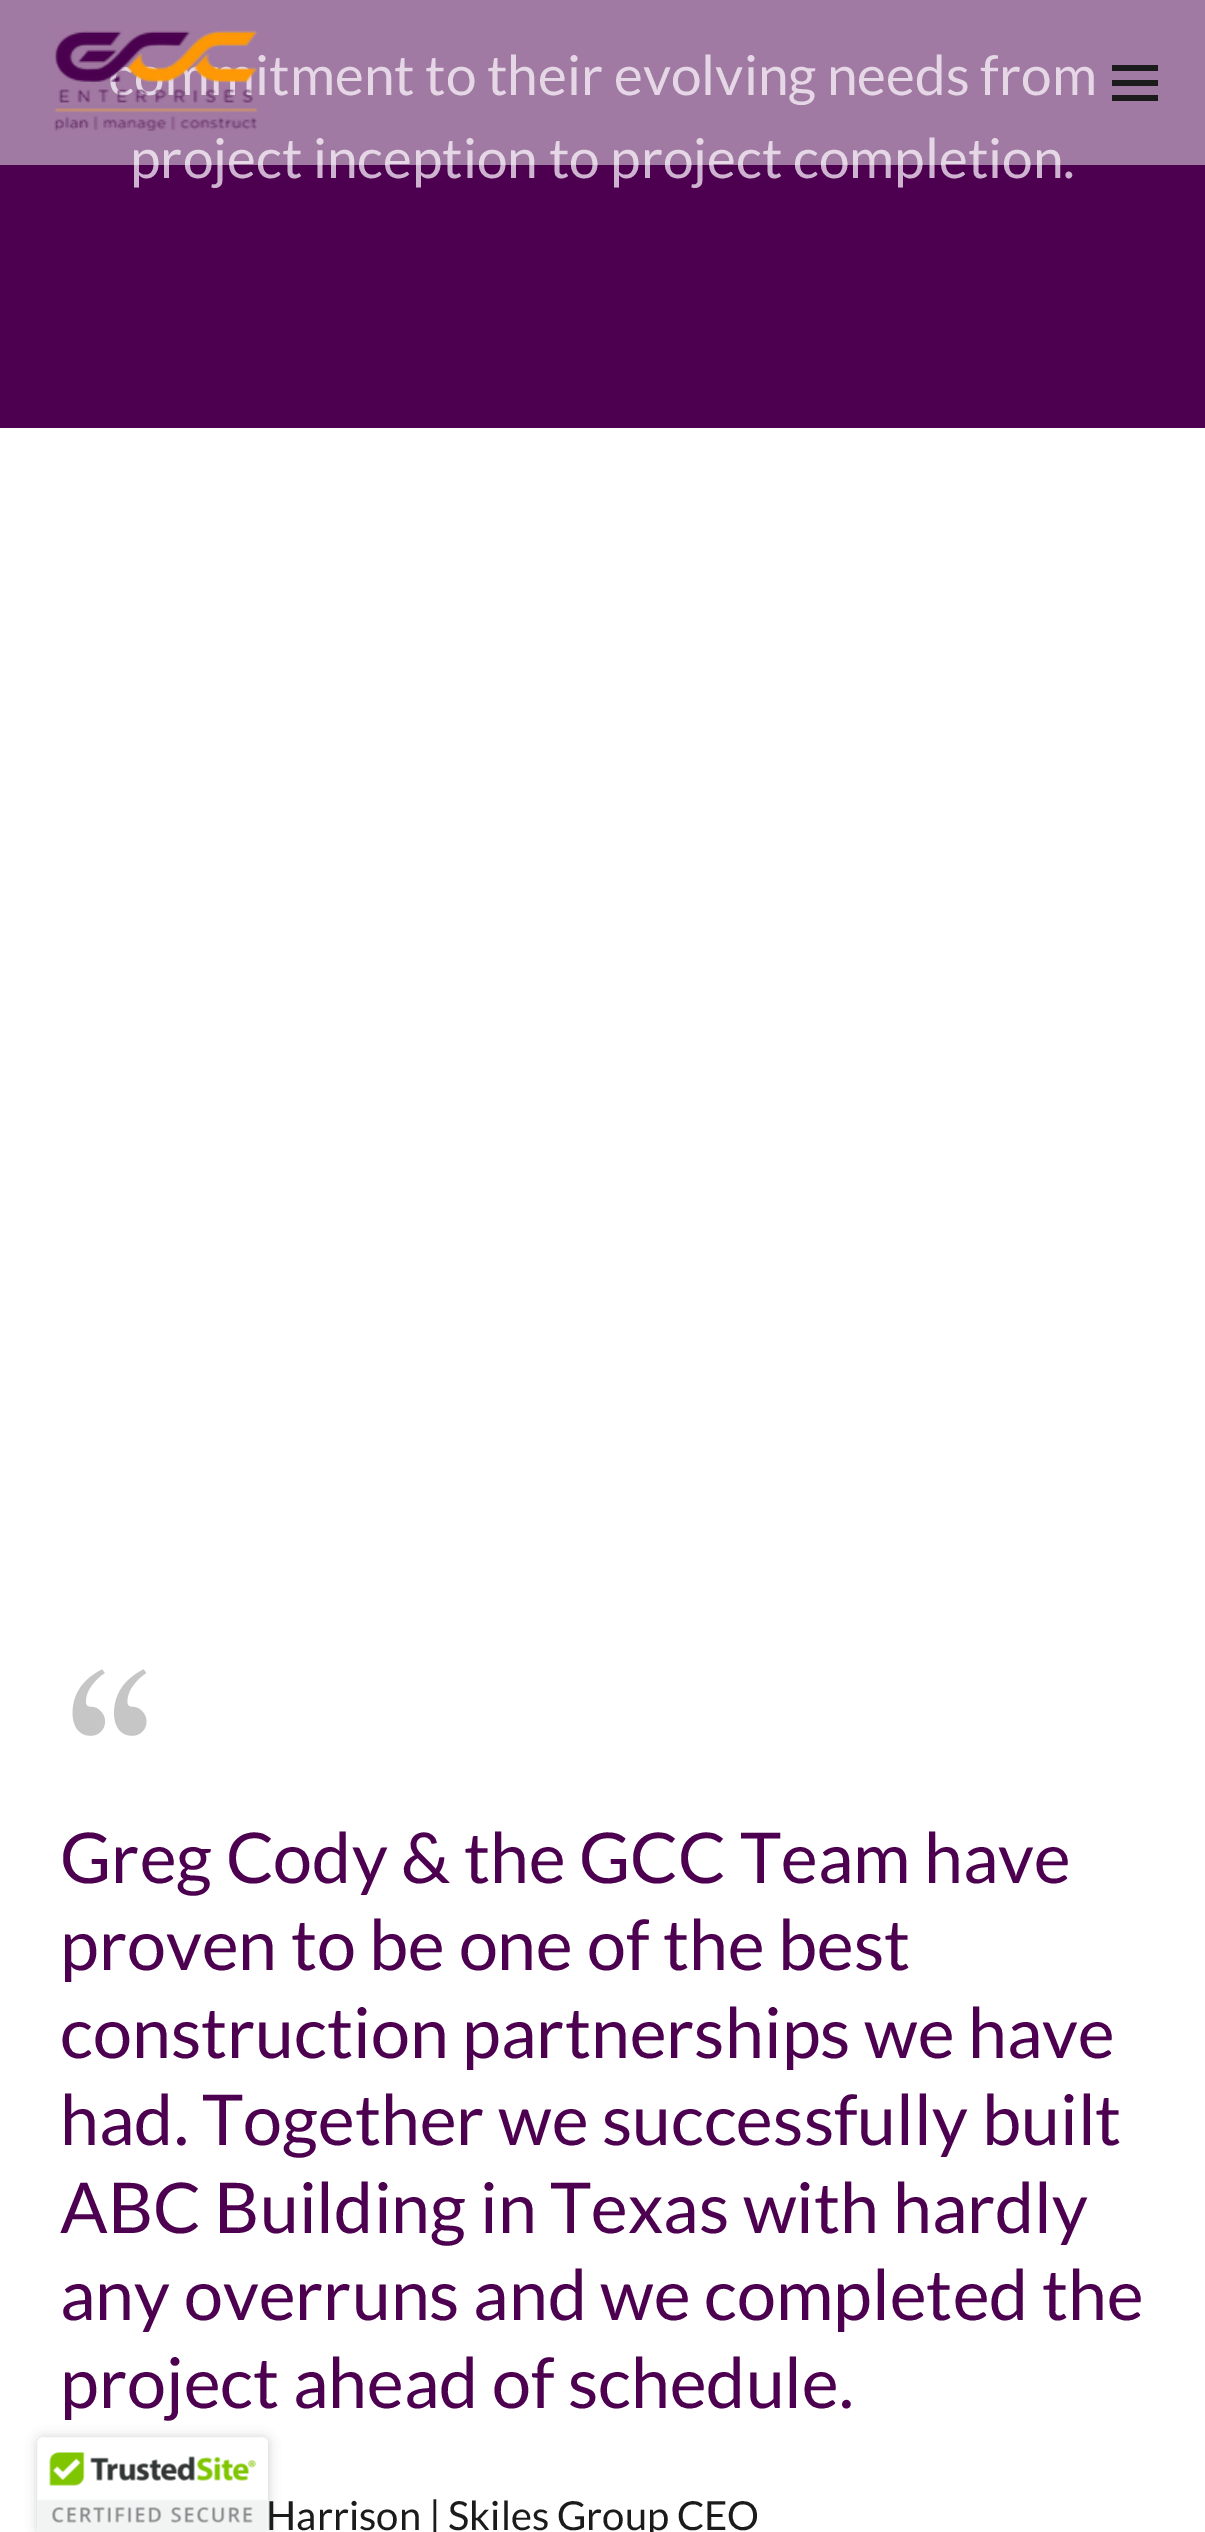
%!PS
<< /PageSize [1205 2532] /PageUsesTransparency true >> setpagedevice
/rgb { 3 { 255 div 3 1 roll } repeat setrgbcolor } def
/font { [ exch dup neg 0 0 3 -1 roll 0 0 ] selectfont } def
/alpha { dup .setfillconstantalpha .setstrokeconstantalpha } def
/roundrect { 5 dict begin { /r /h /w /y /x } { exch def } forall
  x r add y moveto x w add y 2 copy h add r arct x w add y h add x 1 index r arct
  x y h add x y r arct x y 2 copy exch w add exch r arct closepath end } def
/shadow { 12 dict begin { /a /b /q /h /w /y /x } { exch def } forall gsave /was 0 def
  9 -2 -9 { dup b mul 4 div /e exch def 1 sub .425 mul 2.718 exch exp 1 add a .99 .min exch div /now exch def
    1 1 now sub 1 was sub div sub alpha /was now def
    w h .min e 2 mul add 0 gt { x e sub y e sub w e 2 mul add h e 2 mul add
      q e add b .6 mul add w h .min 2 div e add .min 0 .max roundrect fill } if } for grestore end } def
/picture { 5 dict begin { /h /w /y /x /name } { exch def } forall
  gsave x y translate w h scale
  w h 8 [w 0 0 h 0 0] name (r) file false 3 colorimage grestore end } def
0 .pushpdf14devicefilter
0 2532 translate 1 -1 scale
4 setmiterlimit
255 255 255 rgb
0 0 1205 2532 rectfill
76 0 79 rgb
0 0 1205 428 rectfill
(img/2.rgb) 72 1669 75 67 picture
0 0 0 rgb
38 2438 230 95 5 6 0.2 shadow
255 255 255 rgb
43 2438 moveto 263 2438 lineto 266 2438 268 2440 268 2443 curveto 268 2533 lineto 38 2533 lineto 38 2443 lineto 38 2440 40 2438 43 2438 curveto closepath fill
(img/3.rgb) 37 2437 231 95 picture
/Lato-Regular 55 font
205 179 207 rgb
255 95 moveto (itment to their evolving needs from) show
130 178 moveto (project inception to project completion.) show
0.3 alpha
[
  [0 0 1205 165 255 255 255]
] { aload pop rgb rectfill } forall
0.25 alpha
[
  [0 0 1205 165 255 255 255]
] { aload pop rgb rectfill } forall
1 alpha
[
  [1112 95 46 6 27 27 27]
  [1112 80 46 6 27 27 27]
  [1112 65 46 6 27 27 27]
] { aload pop rgb rectfill } forall
(img/1.rgb) 54 30 204 101 picture
/Lato-Regular 70 font
76 0 79 rgb
[
  [(Greg Cody & the GCC Team have) 60 1883]
  [(proven to be one of the best) 60 1970]
  [(construction partnerships we have) 60 2058]
  [(had. Together we successfully built) 60 2145]
  [(ABC Building in Texas with hardly) 60 2233]
  [(any overruns and we completed the) 60 2320]
  [(project ahead of schedule.) 60 2408]
] { aload pop moveto show } forall
/Lato-Regular 40 font
27 27 27 rgb
266 2530 moveto (Harrison | Skiles Group CEO) show
.poppdf14devicefilter showpage
